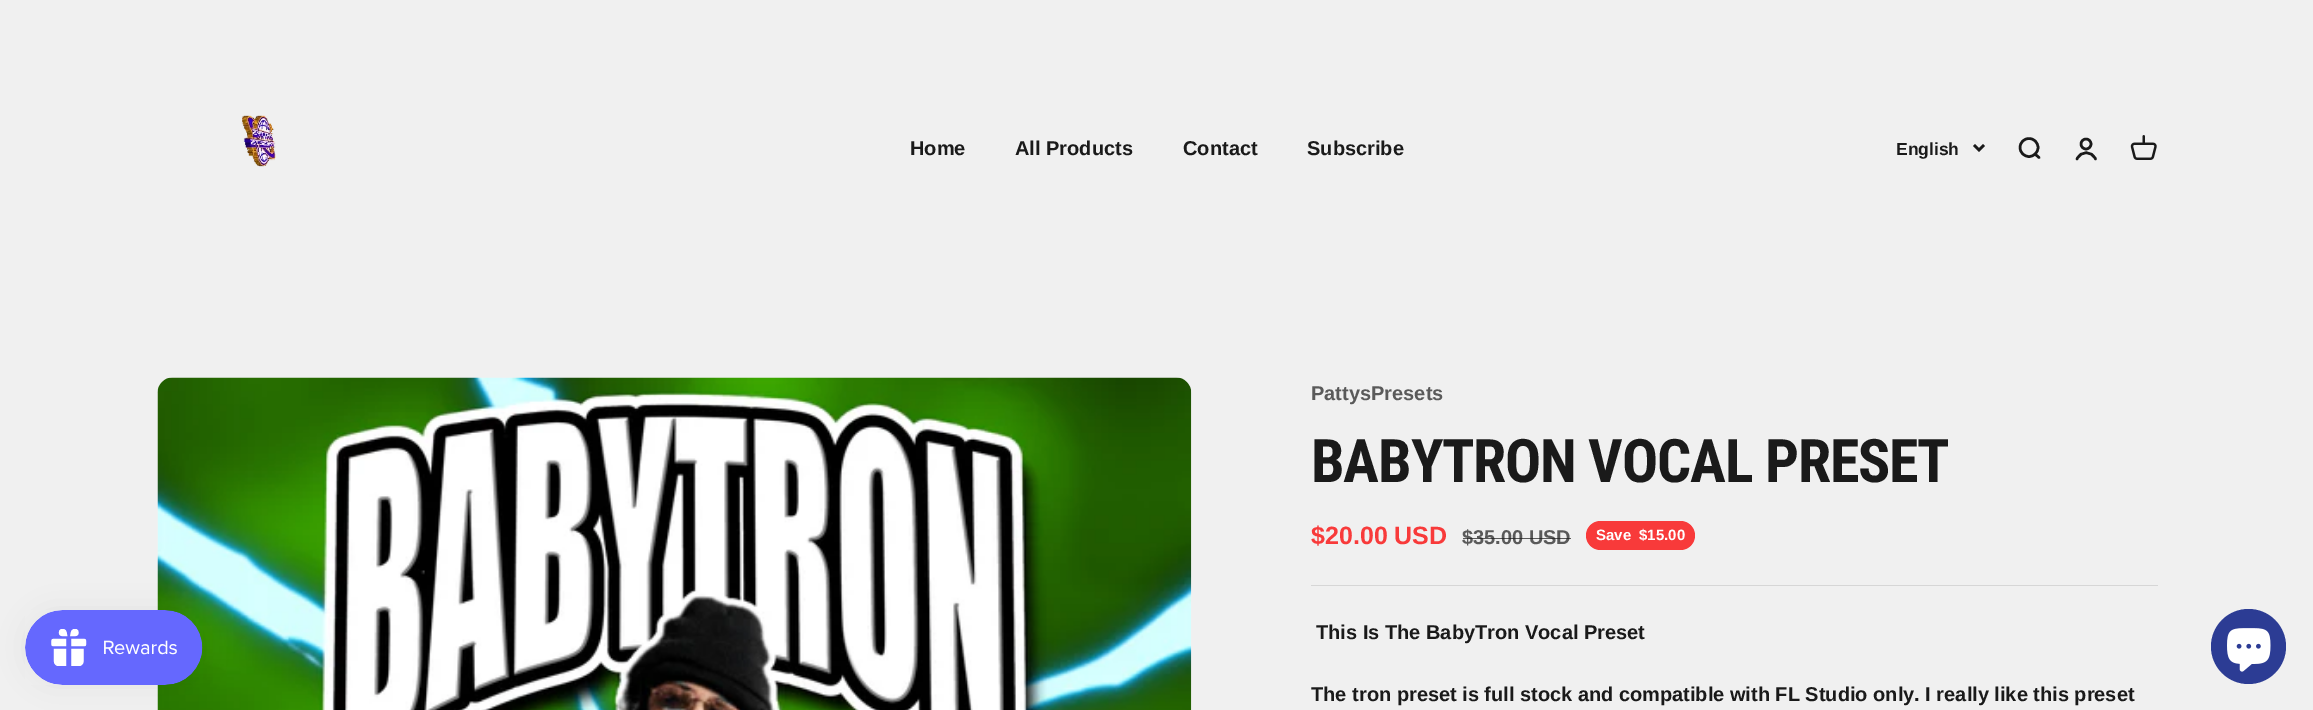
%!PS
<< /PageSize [2313 710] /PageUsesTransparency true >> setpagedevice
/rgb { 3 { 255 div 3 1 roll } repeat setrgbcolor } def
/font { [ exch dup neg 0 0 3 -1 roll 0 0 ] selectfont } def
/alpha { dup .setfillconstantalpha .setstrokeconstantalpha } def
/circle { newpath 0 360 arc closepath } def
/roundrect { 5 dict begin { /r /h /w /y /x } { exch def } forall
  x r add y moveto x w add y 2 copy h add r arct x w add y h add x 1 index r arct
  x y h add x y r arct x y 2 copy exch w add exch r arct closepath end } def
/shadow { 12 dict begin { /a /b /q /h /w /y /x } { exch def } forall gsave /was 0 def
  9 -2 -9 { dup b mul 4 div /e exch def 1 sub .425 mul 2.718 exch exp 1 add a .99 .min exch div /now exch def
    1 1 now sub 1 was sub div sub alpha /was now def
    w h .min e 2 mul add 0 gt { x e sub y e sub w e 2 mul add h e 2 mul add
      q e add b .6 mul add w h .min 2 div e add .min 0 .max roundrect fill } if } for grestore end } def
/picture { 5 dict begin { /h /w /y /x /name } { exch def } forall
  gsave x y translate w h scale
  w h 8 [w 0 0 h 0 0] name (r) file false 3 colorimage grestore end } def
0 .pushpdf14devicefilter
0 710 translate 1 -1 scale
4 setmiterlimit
240 240 240 rgb
0 0 2313 710 rectfill
(img/1.rgb) 241 115 35 52 picture
26 26 26 rgb
2.5 setlinewidth
1974 145 moveto 1979 150 lineto 1984 145 lineto stroke
2029 147.5 9 circle stroke
1 setlinecap
1 setlinejoin
2035 154 moveto 2039 157.5 lineto stroke
0 setlinecap
0 setlinejoin
2086 144 5 circle stroke
1 setlinecap
2077 159 moveto 2081 150.5 2091.5 150.5 2095.5 159 curveto stroke
(img/2.rgb) 2130 135 27 25 picture
(img/4.rgb) 157 377 1035 333 picture
0 0 0 rgb
25 610 178 75 37.5 15.5 0.05 shadow
(img/3.rgb) 25 610 178 75 picture
248 58 58 rgb
1586 521 109 29 14.5 roundrect fill
214 214 214 rgb
1311 585 847 1 rectfill
44 60 148 rgb
2248.5 646.5 37.5 circle fill
(img/5.rgb) 2227 628 44 44 picture
/LiberationSans-Bold 20 font
26 26 26 rgb
[
  [(Home) 910 155]
  [(All Products) 1015 155]
  [(Contact) 1183 155]
  [(Subscribe) 1307 155]
] { aload pop moveto show } forall
/LiberationSans-Bold 17.5 font
1896 155 moveto (English) show
/LiberationSans-Bold 20 font
90 90 90 rgb
1311 400 moveto (PattysPresets) show
/RobotoCondensed-Bold 60 font
26 26 26 rgb
1311 482 moveto -1.2 0 (BABYTRON VOCAL PRESET) ashow
/LiberationSans-Bold 25 font
248 58 58 rgb
1311 544 moveto ($20.00 USD) show
/LiberationSans-Bold 20 font
90 90 90 rgb
1462 544 moveto ($35.00 USD) show
0.7 alpha
26 26 26 rgb
1463 538 108 1 rectfill
/LiberationSans-Bold 15 font
1 alpha
255 255 255 rgb
1596 540 moveto (Save) show
1639 540 moveto ($15.00) show
/LiberationSans-Bold 20 font
26 26 26 rgb
1316 639 moveto (This Is The BabyTron Vocal Preset) show
1311 701 moveto (The tron preset is full stock and compatible with FL Studio only. I really like this preset) show
.poppdf14devicefilter showpage
